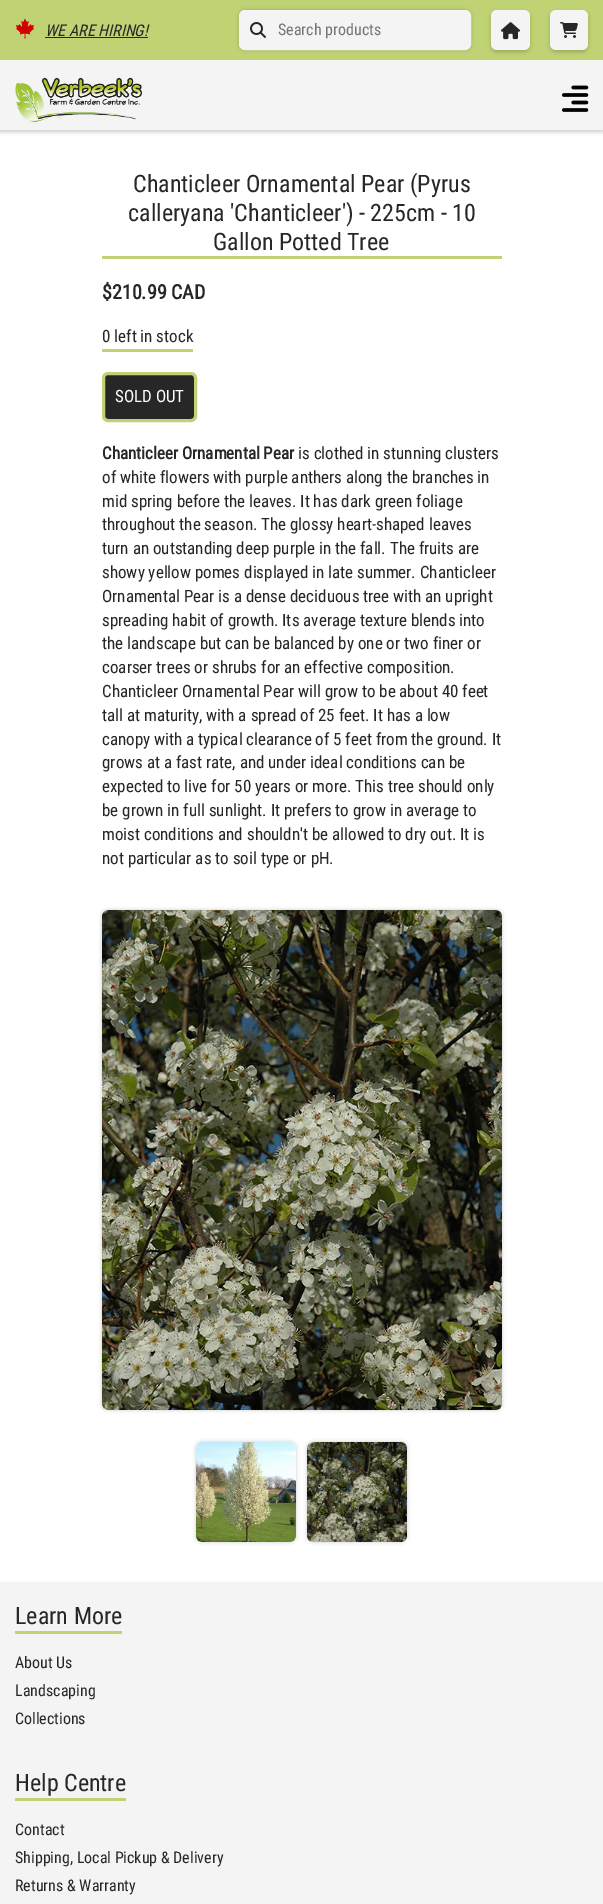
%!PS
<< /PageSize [603 1904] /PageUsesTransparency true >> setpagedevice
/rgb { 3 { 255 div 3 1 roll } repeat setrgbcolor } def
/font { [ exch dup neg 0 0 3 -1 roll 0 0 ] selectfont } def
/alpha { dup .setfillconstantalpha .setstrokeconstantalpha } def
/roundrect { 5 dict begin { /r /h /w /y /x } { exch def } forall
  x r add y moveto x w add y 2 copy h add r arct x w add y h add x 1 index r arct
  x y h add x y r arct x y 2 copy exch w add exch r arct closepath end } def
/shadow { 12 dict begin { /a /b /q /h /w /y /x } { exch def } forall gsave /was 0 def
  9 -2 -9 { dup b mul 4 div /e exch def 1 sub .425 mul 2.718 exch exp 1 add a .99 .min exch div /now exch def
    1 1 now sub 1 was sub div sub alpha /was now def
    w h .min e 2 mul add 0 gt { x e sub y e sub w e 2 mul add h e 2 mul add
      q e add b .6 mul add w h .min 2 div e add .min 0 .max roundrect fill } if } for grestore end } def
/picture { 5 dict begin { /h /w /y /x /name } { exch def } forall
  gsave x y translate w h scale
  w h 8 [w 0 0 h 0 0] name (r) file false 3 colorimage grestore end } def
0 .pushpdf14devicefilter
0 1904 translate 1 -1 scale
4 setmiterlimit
255 255 255 rgb
0 0 603 1904 rectfill
0 0 0 rgb
0 62 603 70 0 2 0.21 shadow
191 211 117 rgb
0 0 603 60 rectfill
(img/1.rgb) 16 18 18 21 picture
39 39 39 rgb
45 37 103 1 rectfill
0 0 0 rgb
239 10 232 40 6 2 0.21 shadow
244 244 244 rgb
239.5 10.5 231 39 5.5 roundrect gsave fill grestore
stroke
(img/2.rgb) 250 22 16 16 picture
0 0 0 rgb
491 12 39 40 6 2 0.21 shadow
244 244 244 rgb
491 10 39 40 6 roundrect fill
(img/3.rgb) 501 22 20 18 picture
0 0 0 rgb
550 12 38 40 6 2 0.21 shadow
244 244 244 rgb
550 10 38 40 6 roundrect fill
(img/4.rgb) 560 22 18 16 picture
0 60 603 70 rectfill
(img/5.rgb) 15 77 127 46 picture
(img/6.rgb) 562 85 27 27 picture
191 211 117 rgb
102 256 400 3 rectfill
102 349 91 3 rectfill
39 39 39 rgb
103.5 373.5 92 47 4.5 roundrect gsave fill grestore
191 211 117 rgb
3 setlinewidth
stroke
0 0 0 rgb
102 910 400 500 6 2 0.21 shadow
(img/7.rgb) 102 910 400 500 picture
196 1442 100 100 6 2 0.21 shadow
(img/8.rgb) 196 1442 100 100 picture
307 1442 100 100 6 2 0.21 shadow
(img/9.rgb) 307 1442 100 100 picture
[
  [0 1582 603 322 244 244 244]
  [15 1631 107 3 191 211 117]
  [15 1798 111 3 191 211 117]
] { aload pop rgb rectfill } forall
/RobotoCondensed-Italic 16 font
39 39 39 rgb
45 36 moveto (WE ARE HIRING!) show
/RobotoCondensed-Regular 16 font
117 117 117 rgb
278 35 moveto (Search products) show
/RobotoCondensed-Regular 24 font
39 39 39 rgb
[
  [(Chanticleer Ornamental Pear \(Pyrus) 133 192]
  [(calleryana 'Chanticleer'\) - 225cm - 10) 128 221]
  [(Gallon Potted Tree) 213 250]
] { aload pop moveto show } forall
/RobotoCondensed-Bold 20 font
102 299 moveto ($210.99 CAD) show
/RobotoCondensed-Regular 17 font
102 342 moveto (0 left in stock) show
255 255 255 rgb
115 402 moveto (SOLD OUT) show
/RobotoCondensed-Bold 17 font
39 39 39 rgb
102 459 moveto (Chanticleer Ornamental Pear) show
/RobotoCondensed-Regular 17 font
[
  [(is clothed in stunning clusters) 298 459]
  [(of white flowers with purple anthers along the branches in) 102 483]
  [(mid spring before the leaves. It has dark green foliage) 102 507]
  [(throughout the season. The glossy heart-shaped leaves) 102 530]
  [(turn an outstanding deep purple in the fall. The fruits are) 102 554]
  [(showy yellow pomes displayed in late summer. Chanticleer) 102 578]
  [(Ornamental Pear is a dense deciduous tree with an upright) 102 602]
  [(spreading habit of growth. Its average texture blends into) 102 626]
  [(the landscape but can be balanced by one or two finer or) 102 649]
  [(coarser trees or shrubs for an effective composition.) 102 673]
  [(Chanticleer Ornamental Pear will grow to be about 40 feet) 102 697]
  [(tall at maturity, with a spread of 25 feet. It has a low) 102 721]
  [(canopy with a typical clearance of 5 feet from the ground. It) 102 745]
  [(grows at a fast rate, and under ideal conditions can be) 102 768]
  [(expected to live for 50 years or more. This tree should only) 102 792]
  [(be grown in full sunlight. It prefers to grow in average to) 102 816]
  [(moist conditions and shouldn't be allowed to dry out. It is) 102 840]
  [(not particular as to soil type or pH.) 102 864]
] { aload pop moveto show } forall
/RobotoCondensed-Regular 24 font
15 1624 moveto (Learn More) show
/RobotoCondensed-Regular 16 font
[
  [(About Us) 15 1668]
  [(Landscaping) 15 1696]
  [(Collections) 15 1724]
] { aload pop moveto show } forall
/RobotoCondensed-Regular 24 font
15 1791 moveto (Help Centre) show
/RobotoCondensed-Regular 16 font
[
  [(Contact) 15 1835]
  [(Shipping, Local Pickup & Delivery) 15 1863]
  [(Returns & Warranty) 15 1891]
] { aload pop moveto show } forall
.poppdf14devicefilter showpage
